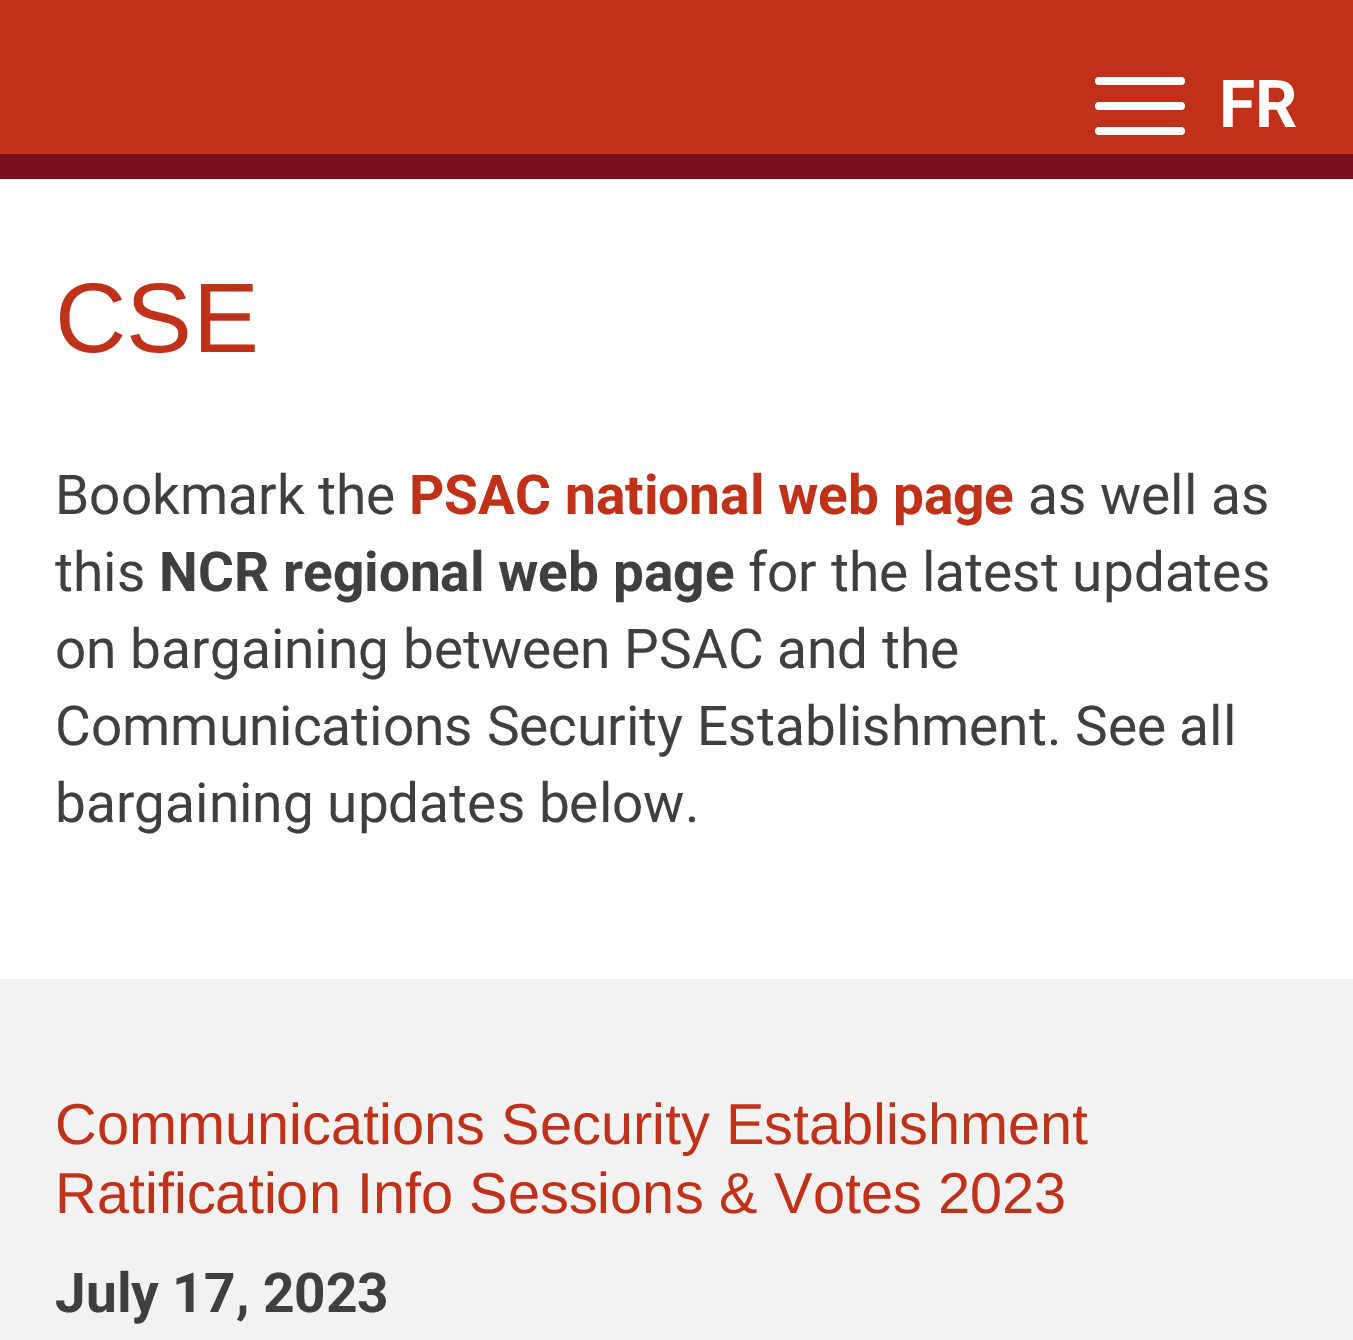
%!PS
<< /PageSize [1353 1340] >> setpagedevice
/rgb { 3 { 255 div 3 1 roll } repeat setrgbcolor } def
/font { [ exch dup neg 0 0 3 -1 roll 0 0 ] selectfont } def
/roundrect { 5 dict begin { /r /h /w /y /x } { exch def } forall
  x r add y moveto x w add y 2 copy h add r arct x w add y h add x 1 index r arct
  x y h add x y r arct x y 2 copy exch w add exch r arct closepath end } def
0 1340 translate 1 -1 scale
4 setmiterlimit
255 255 255 rgb
0 0 1353 1340 rectfill
192 49 26 rgb
0 0 1353 154 rectfill
121 18 29 rgb
0 154 1353 25 rectfill
255 255 255 rgb
1095 77 90 8 4 roundrect fill
1095 102 90 8 4 roundrect fill
1095 127 90 8 4 roundrect fill
242 242 242 rgb
0 979 1353 361 rectfill
/Roboto-Bold 66 font
255 255 255 rgb
1219 127 moveto (FR) show
/LiberationSans-Regular 99 font
192 49 26 rgb
55 352 moveto (CSE) show
/Roboto-Regular 55 font
63 63 63 rgb
55 514 moveto (Bookmark the) show
/Roboto-Bold 55 font
192 49 26 rgb
409 514 moveto (PSAC national web page) show
/Roboto-Regular 55 font
63 63 63 rgb
1028 514 moveto (as well as) show
55 591 moveto (this) show
/Roboto-Bold 55 font
159 591 moveto (NCR regional web page) show
/Roboto-Regular 55 font
[
  [(for the latest updates) 748 591]
  [(on bargaining between PSAC and the) 55 668]
  [(Communications Security Establishment. See all) 55 745]
  [(bargaining updates below.) 55 822]
] { aload pop moveto show } forall
/LiberationSans-Regular 57.75 font
192 49 26 rgb
55 1144 moveto (Communications Security Establishment) show
55 1213 moveto (Ratification Info Sessions & Votes 2023) show
/Roboto-Bold 55 font
63 63 63 rgb
55 1312 moveto (July 17, 2023) show
showpage
